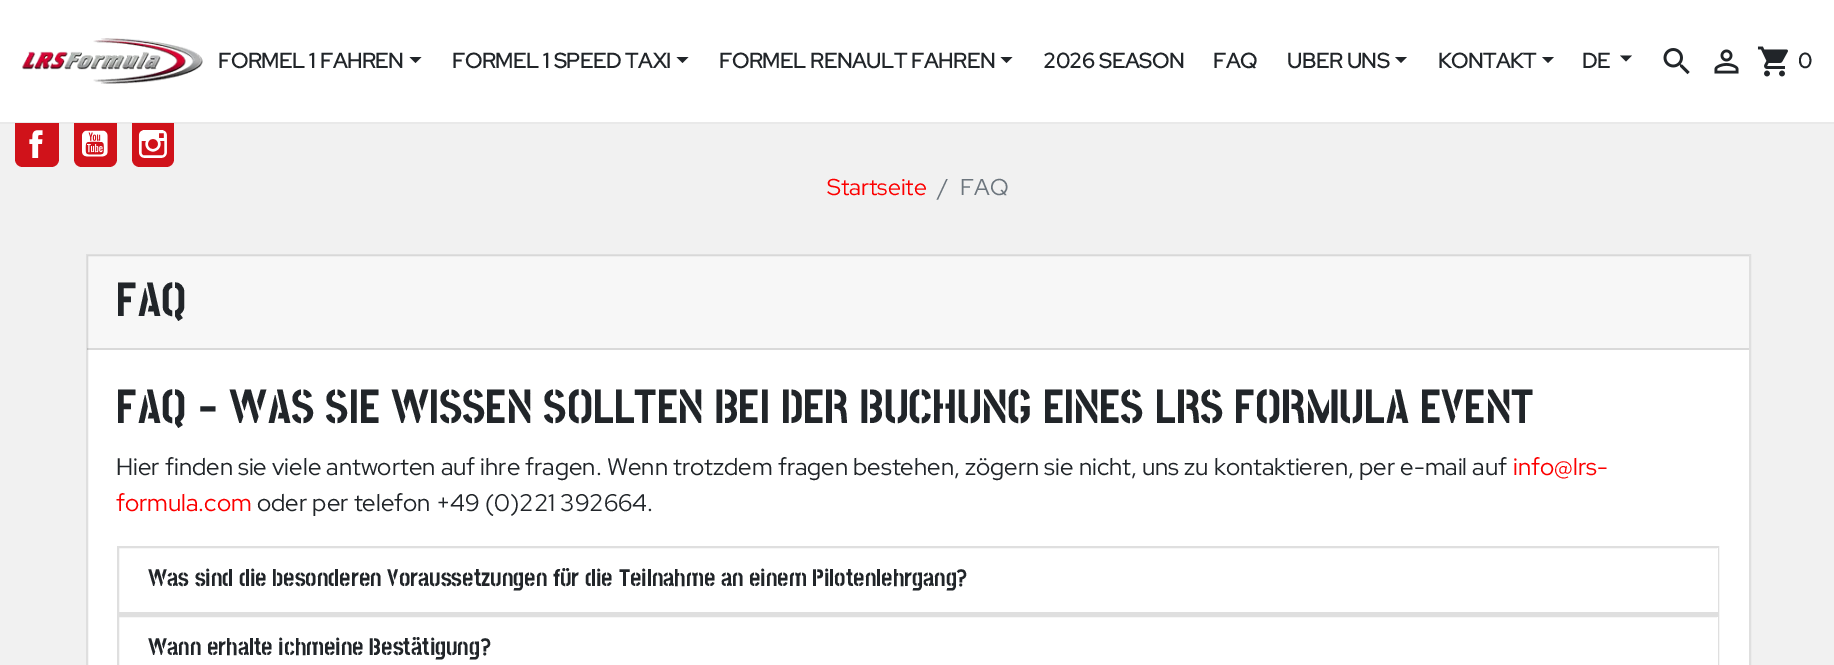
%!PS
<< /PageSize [1834 665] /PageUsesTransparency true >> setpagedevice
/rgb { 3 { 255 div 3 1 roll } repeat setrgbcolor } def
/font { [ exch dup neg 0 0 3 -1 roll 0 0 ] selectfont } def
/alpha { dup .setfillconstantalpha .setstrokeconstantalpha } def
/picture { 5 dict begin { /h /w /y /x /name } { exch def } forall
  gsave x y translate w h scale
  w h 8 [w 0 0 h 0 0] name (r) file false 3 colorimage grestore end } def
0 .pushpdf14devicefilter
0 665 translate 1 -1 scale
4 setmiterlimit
241 241 241 rgb
0 0 1834 665 rectfill
233 233 233 rgb
0 122 1834 2 rectfill
255 255 255 rgb
0 0 1834 122 rectfill
(img/1.rgb) 22 38 181 46 picture
33 37 41 rgb
409.5 57 moveto 421.5 57 lineto 415.5 63 lineto closepath fill
676.5 57 moveto 688.5 57 lineto 682.5 63 lineto closepath fill
1000.5 57 moveto 1012.5 57 lineto 1006.5 63 lineto closepath fill
1395 57 moveto 1407 57 lineto 1401 63 lineto closepath fill
1542 57 moveto 1554 57 lineto 1548 63 lineto closepath fill
1620 55.5 moveto 1632 55.5 lineto 1626 61.5 lineto closepath fill
(img/2.rgb) 1663 48 27 27 picture
(img/3.rgb) 1714 49 25 25 picture
(img/4.rgb) 1757 46 31 31 picture
208 18 26 rgb
15 123 moveto 59 123 lineto 59 159 lineto 59 163.5 55.5 167 51 167 curveto 23 167 lineto 18.5 167 15 163.5 15 159 curveto closepath fill
(img/5.rgb) 29 130 14 28 picture
74 123 moveto 117 123 lineto 117 159 lineto 117 163.5 113.5 167 109 167 curveto 82 167 lineto 77.5 167 74 163.5 74 159 curveto closepath fill
(img/6.rgb) 82 130 26 27 picture
132 123 moveto 174 123 lineto 174 159 lineto 174 163.5 170.5 167 166 167 curveto 140 167 lineto 135.5 167 132 163.5 132 159 curveto closepath fill
(img/7.rgb) 138 130 29 28 picture
255 255 255 rgb
87 255 moveto 1750 255 lineto 1750 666 lineto 87 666 lineto closepath gsave fill grestore
223 223 223 rgb
2 setlinewidth
stroke
0.03 alpha
0 0 0 rgb
87 255 1662 95 rectfill
0.12 alpha
87 348 1662 2 rectfill
1 alpha
223 223 223 rgb
118 547 1600 67 rectstroke
255 255 255 rgb
1717 548 1 64 rectfill
223 223 223 rgb
119 612 1599 1 rectfill
118 616 1600 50 rectstroke
255 255 255 rgb
1717 617 1 48 rectfill
/RedHatDisplay-Bold 21 font
33 37 41 rgb
[
  [(FORMEL 1 FAHREN) 218 68]
  [(FORMEL 1 SPEED TAXI) 452 68]
  [(FORMEL RENAULT FAHREN) 719 68]
  [(2026 SEASON) 1043 68]
  [(FAQ) 1213 68]
  [(UBER UNS) 1287 68]
  [(KONTAKT) 1438 68]
  [(DE) 1582 68]
  [(0) 1798 68]
] { aload pop moveto show } forall
/RedHatDisplay-Regular 23 font
252 0 0 rgb
827 195 moveto (Startseite) show
108 117 125 rgb
938 195 moveto (/) show
960 195 moveto (FAQ) show
/StickNoBills-ExtraLight 48 font
33 37 41 rgb
116 316 moveto (FAQ) show
116 423 moveto (FAQ - WAS SIE WISSEN SOLLTEN BEI DER BUCHUNG EINES LRS FORMULA EVENT) show
/RedHatDisplay-Regular 24 font
116 475 moveto (Hier finden sie viele antworten auf ihre fragen. Wenn trotzdem fragen bestehen, zögern sie nicht, uns zu kontaktieren, per e-mail auf) show
252 0 0 rgb
1513 475 moveto (info@lrs-) show
116 511 moveto (formula.com) show
33 37 41 rgb
257 511 moveto (oder per telefon +49 \(0\)221 392664.) show
/StickNoBills-ExtraLight 24 font
148 586 moveto (Was sind die besonderen Voraussetzungen für die Teilnahme an einem Pilotenlehrgang?) show
148 655 moveto (Wann erhalte ichmeine Bestätigung?) show
.poppdf14devicefilter showpage
